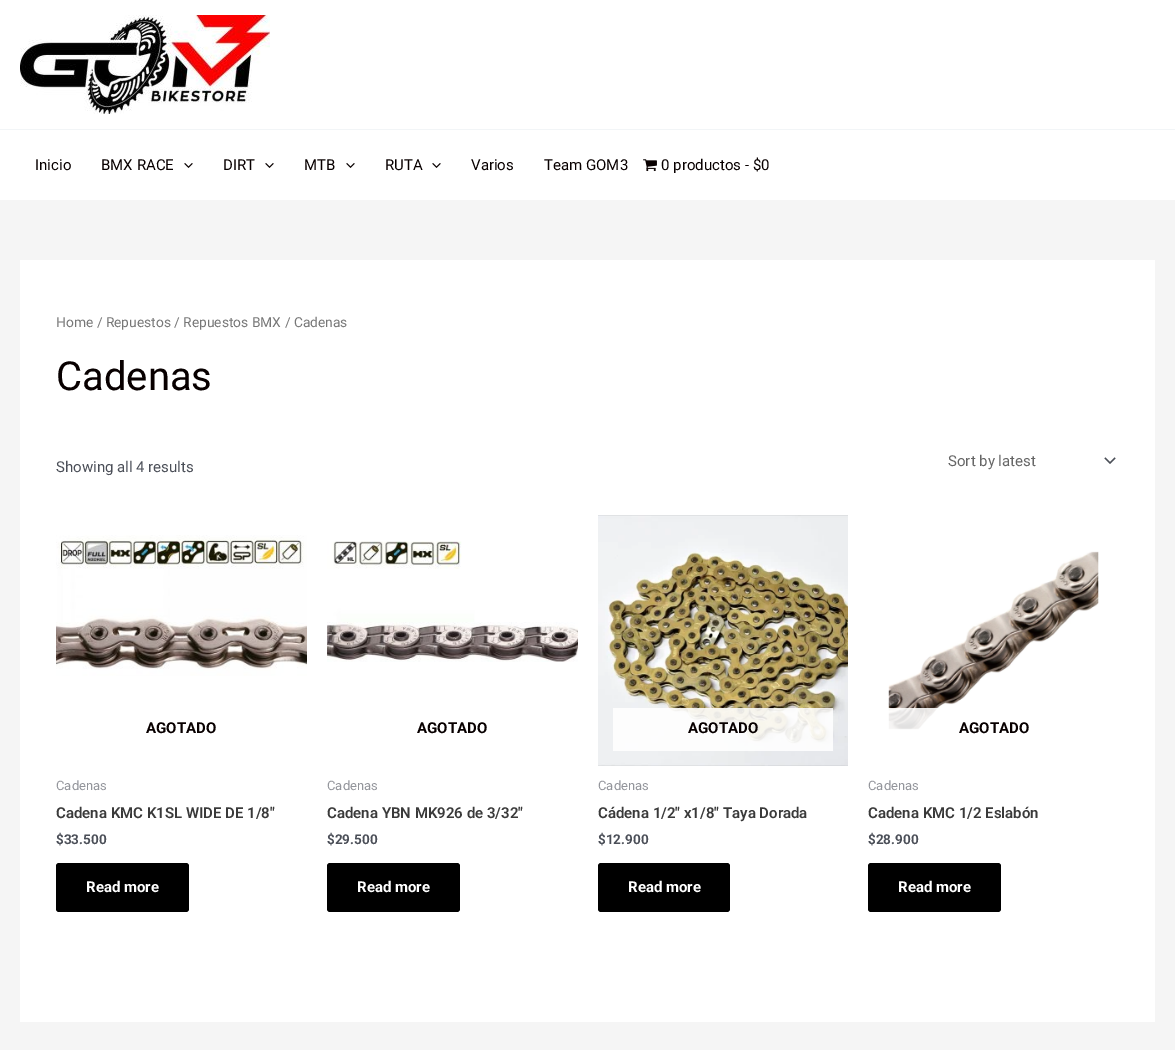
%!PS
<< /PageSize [1175 1050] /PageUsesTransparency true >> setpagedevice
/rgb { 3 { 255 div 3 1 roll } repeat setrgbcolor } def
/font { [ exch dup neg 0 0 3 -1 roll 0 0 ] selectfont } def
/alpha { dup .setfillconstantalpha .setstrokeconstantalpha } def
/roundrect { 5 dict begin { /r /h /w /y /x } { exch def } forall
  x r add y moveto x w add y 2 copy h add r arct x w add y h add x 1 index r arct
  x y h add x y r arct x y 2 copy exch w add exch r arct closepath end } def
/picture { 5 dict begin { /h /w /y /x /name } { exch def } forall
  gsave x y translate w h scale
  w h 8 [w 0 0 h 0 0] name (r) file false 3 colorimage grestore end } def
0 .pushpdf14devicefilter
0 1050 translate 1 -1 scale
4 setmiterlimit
245 245 245 rgb
0 0 1175 1050 rectfill
255 255 255 rgb
0 0 1175 129 rectfill
242 245 247 rgb
0 129 1175 1 rectfill
(img/1.rgb) 20 15 250 99 picture
255 255 255 rgb
0 130 1175 70 rectfill
(img/2.rgb) 184 163 9 5 picture
(img/2.rgb) 265 163 9 5 picture
(img/2.rgb) 346 163 9 5 picture
(img/2.rgb) 432 163 9 5 picture
(img/3.rgb) 643 159 14 13 picture
20 260 1135 762 rectfill
(img/4.rgb) 1104 457 12 7 picture
(img/5.rgb) 56 535 251 141 picture
0 0 0 rgb
56 863 133 49 3 roundrect fill
(img/6.rgb) 327 541 251 121 picture
327 863 133 49 3 roundrect fill
(img/7.rgb) 598 515 250 251 picture
0.88 alpha
255 255 255 rgb
613 708 220 43 rectfill
1 alpha
0 0 0 rgb
598 863 132 49 3 roundrect fill
(img/8.rgb) 888 551 211 179 picture
0.88 alpha
255 255 255 rgb
888 708 51 22 rectfill
1 alpha
0 0 0 rgb
868 863 133 49 3 roundrect fill
/Roboto-Regular 15 font
8 0 0 rgb
[
  [(Inicio) 35 170]
  [(BMX RACE) 101 170]
  [(DIRT) 223 170]
  [(MTB) 304 170]
  [(RUTA) 385 170]
  [(Varios) 471 170]
  [(Team GOM3) 544 170]
  [(0 productos - $0) 661 170]
] { aload pop moveto show } forall
/Roboto-Regular 13.8 font
119 119 119 rgb
56 327 moveto (Home / Repuestos / Repuestos BMX / Cadenas) show
/Roboto-Regular 40 font
8 0 0 rgb
56 390 moveto (Cadenas) show
/Roboto-Regular 15 font
75 79 88 rgb
56 472 moveto (Showing all 4 results) show
102 102 102 rgb
948 466 moveto (Sort by latest) show
/Roboto-Bold 15 font
8 0 0 rgb
146 733 moveto (AGOTADO) show
/Roboto-Regular 13 font
147 149 155 rgb
56 790 moveto (Cadenas) show
/Roboto-SemiBold 15 font
58 58 58 rgb
56 818 moveto (Cadena KMC K1SL WIDE DE 1/8″) show
/Roboto-Bold 13.5 font
75 79 88 rgb
56 844 moveto ($33.500) show
/Roboto-Bold 15 font
255 255 255 rgb
86 892 moveto (Read more) show
8 0 0 rgb
417 733 moveto (AGOTADO) show
/Roboto-Regular 13 font
147 149 155 rgb
327 790 moveto (Cadenas) show
/Roboto-SemiBold 15 font
58 58 58 rgb
327 818 moveto (Cadena YBN MK926 de 3/32″) show
/Roboto-Bold 13.5 font
75 79 88 rgb
327 844 moveto ($29.500) show
/Roboto-Bold 15 font
255 255 255 rgb
357 892 moveto (Read more) show
8 0 0 rgb
688 733 moveto (AGOTADO) show
/Roboto-Regular 13 font
147 149 155 rgb
598 790 moveto (Cadenas) show
/Roboto-SemiBold 15 font
58 58 58 rgb
598 818 moveto (Cádena 1/2″ x1/8″ Taya Dorada) show
/Roboto-Bold 13.5 font
75 79 88 rgb
598 844 moveto ($12.900) show
/Roboto-Bold 15 font
255 255 255 rgb
628 892 moveto (Read more) show
8 0 0 rgb
959 733 moveto (AGOTADO) show
/Roboto-Regular 13 font
147 149 155 rgb
868 790 moveto (Cadenas) show
/Roboto-SemiBold 15 font
58 58 58 rgb
868 818 moveto (Cadena KMC 1/2 Eslabón) show
/Roboto-Bold 13.5 font
75 79 88 rgb
868 844 moveto ($28.900) show
/Roboto-Bold 15 font
255 255 255 rgb
898 892 moveto (Read more) show
.poppdf14devicefilter showpage
